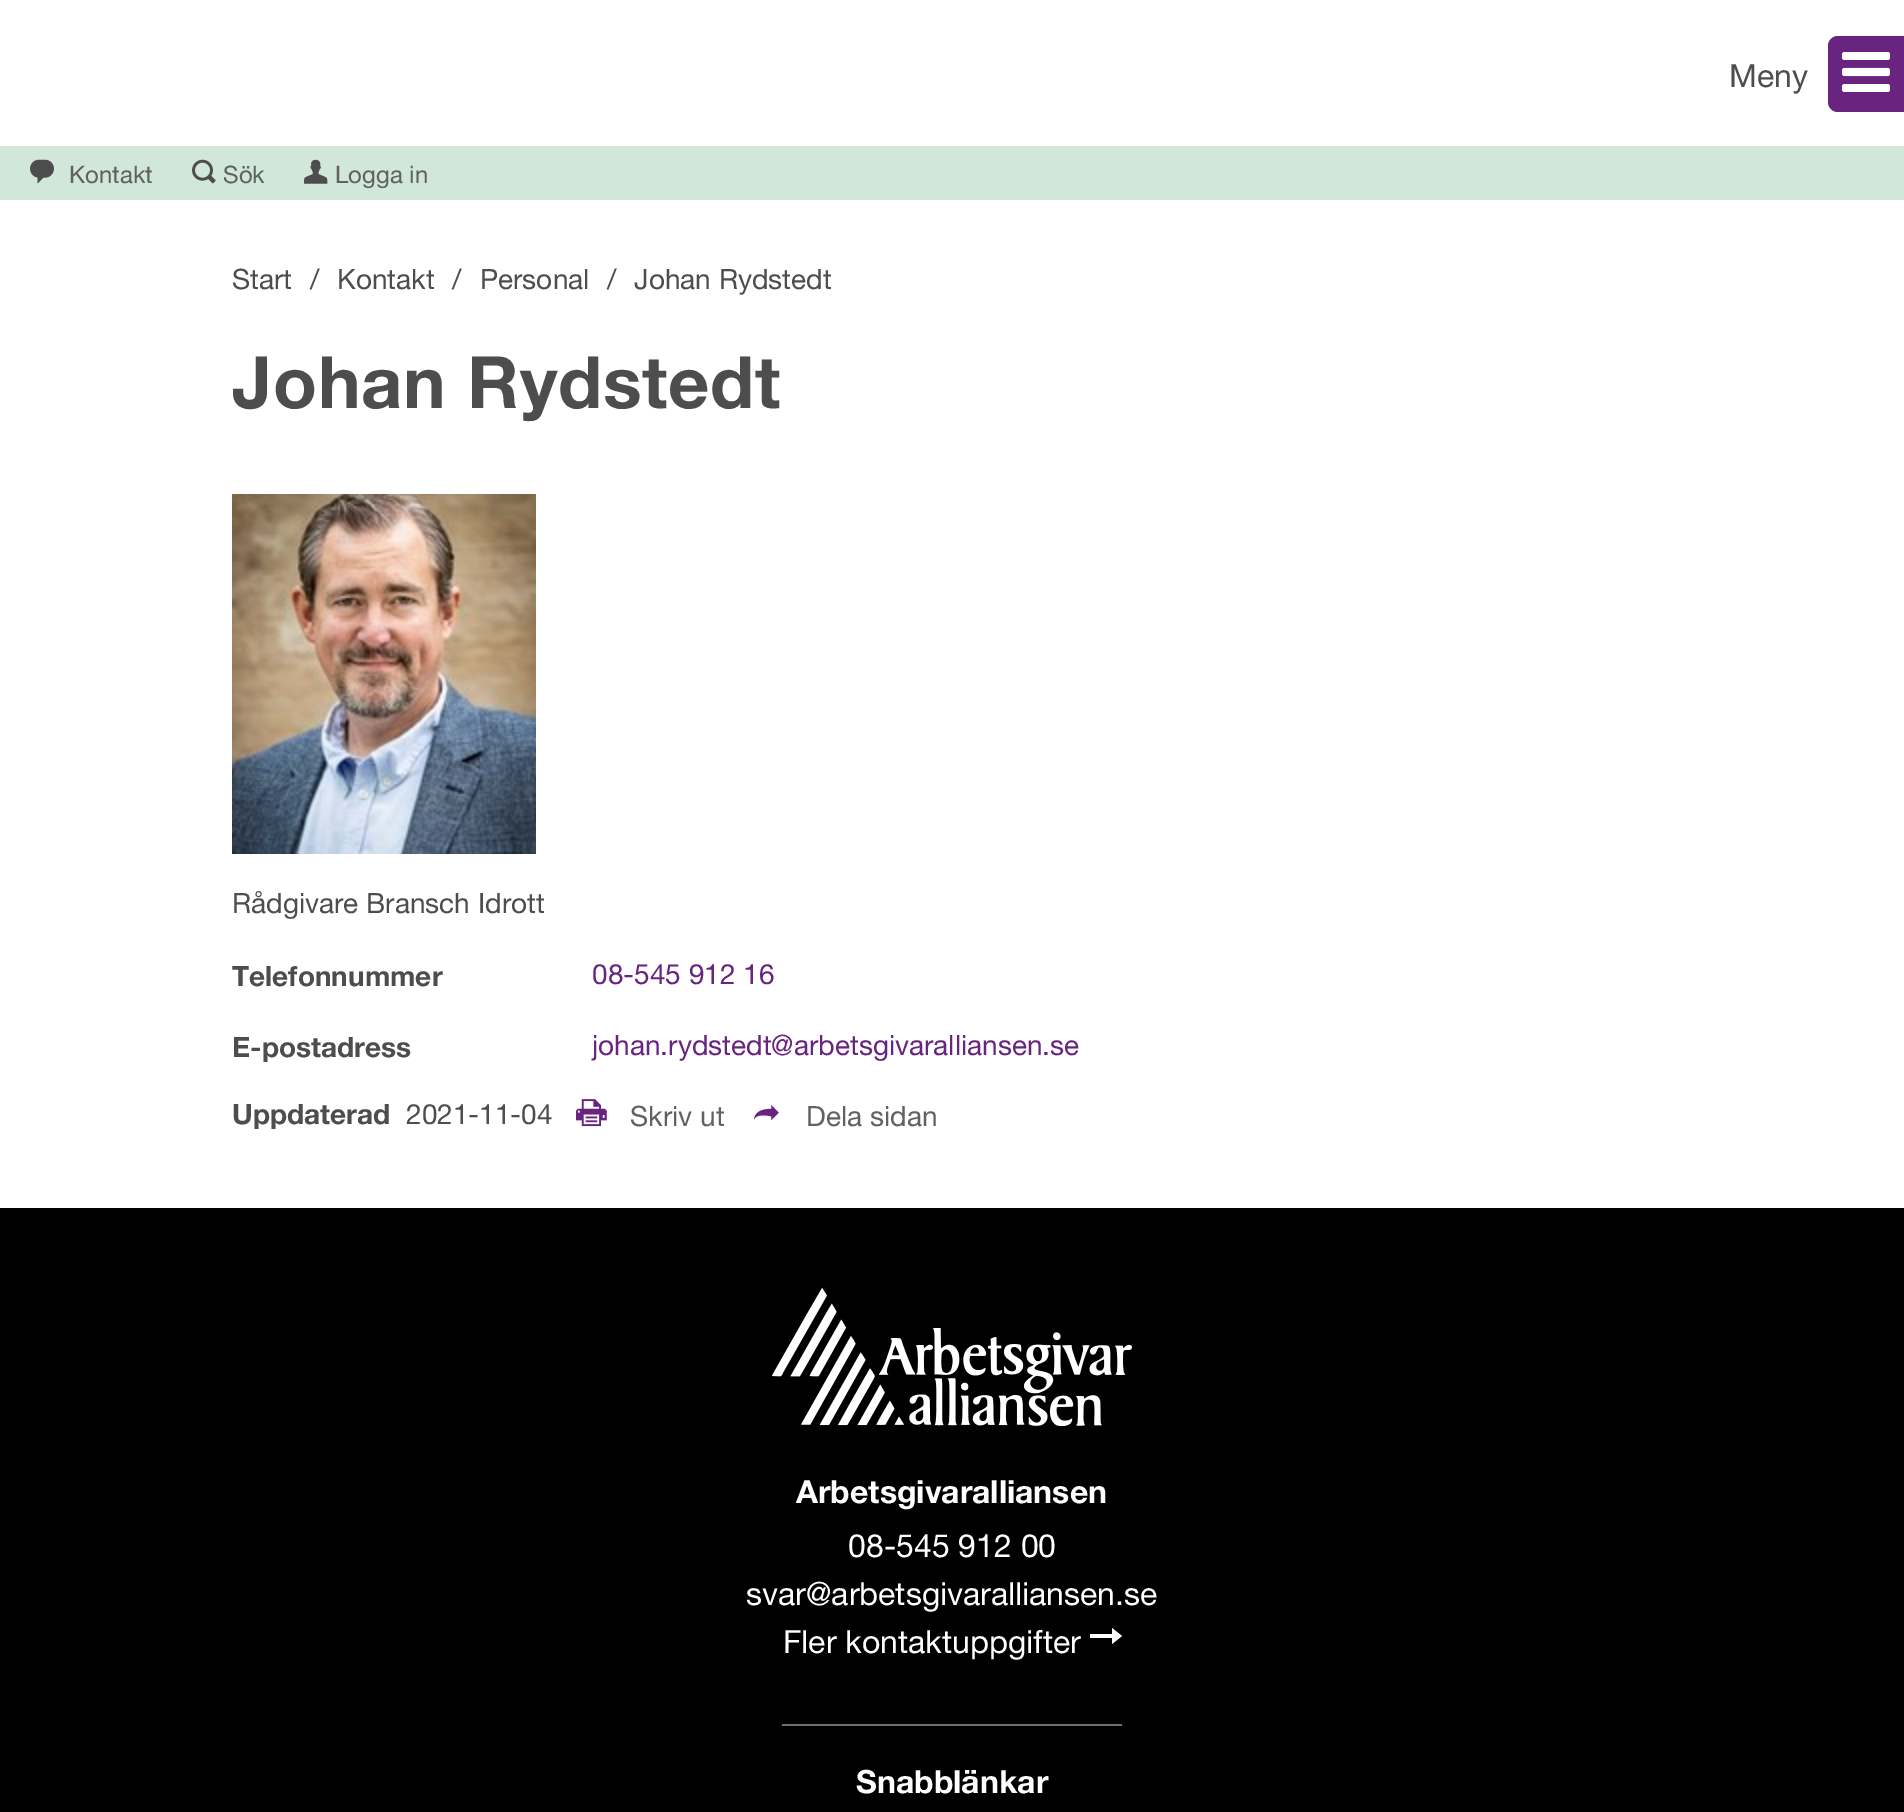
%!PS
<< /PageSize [1904 1812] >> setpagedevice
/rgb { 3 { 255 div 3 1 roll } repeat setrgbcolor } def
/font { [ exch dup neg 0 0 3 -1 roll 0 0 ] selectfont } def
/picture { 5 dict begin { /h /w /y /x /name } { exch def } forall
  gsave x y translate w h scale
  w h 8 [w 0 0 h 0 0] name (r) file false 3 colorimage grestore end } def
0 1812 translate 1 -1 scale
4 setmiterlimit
255 255 255 rgb
0 0 1904 1812 rectfill
105 36 128 rgb
1838 36 moveto 1904 36 lineto 1904 112 lineto 1838 112 lineto 1832.5 112 1828 107.5 1828 102 curveto 1828 46 lineto 1828 40.5 1832.5 36 1838 36 curveto closepath fill
(img/1.rgb) 1842 52 48 40 picture
209 231 218 rgb
0 146 1904 54 rectfill
(img/2.rgb) 30 159 24 25 picture
(img/3.rgb) 192 159 24 25 picture
(img/4.rgb) 304 159 24 25 picture
(img/5.rgb) 232 494 304 360 picture
(img/6.rgb) 576 1099 31 28 picture
(img/7.rgb) 753 1105 26 16 picture
0 0 0 rgb
0 1208 1904 604 rectfill
(img/8.rgb) 772 1288 360 138 picture
255 255 255 rgb
1122 1636 moveto 1112 1644 lineto 1112 1638 lineto 1090 1638 lineto 1090 1634 lineto 1112 1634 lineto 1112 1628 lineto closepath fill
112 112 112 rgb
782 1724 340 2 rectfill
/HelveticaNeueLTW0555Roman-Regular 32 font
78 77 77 rgb
1729 87 moveto (Meny) show
/HelveticaNeueLTW0555Roman-Regular 24 font
97 97 97 rgb
[
  [(Kontakt) 69 183]
  [(Sök) 223 183]
  [(Logga in) 335 183]
] { aload pop moveto show } forall
/HelveticaNeueLTW0555Roman-Regular 28 font
78 77 77 rgb
[
  [(Start) 232 289]
  [(/) 310 289]
  [(Kontakt) 337 289]
  [(/) 452 289]
  [(Personal) 480 289]
  [(/) 607 289]
  [(Johan Rydstedt) 634 289]
] { aload pop moveto show } forall
/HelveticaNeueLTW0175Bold-Bold 72 font
232 408 moveto 0.75 0 (Johan Rydstedt) ashow
/HelveticaNeueLTW0555Roman-Regular 28 font
232 913 moveto (Rådgivare Bransch Idrott) show
/HelveticaNeueLTW0175Bold-Bold 28 font
232 986 moveto (Telefonnummer) show
/HelveticaNeueLTW0555Roman-Regular 28 font
105 36 128 rgb
592 984 moveto (08-545 912 16) show
/HelveticaNeueLTW0175Bold-Bold 28 font
78 77 77 rgb
232 1057 moveto (E-postadress) show
/HelveticaNeueLTW0555Roman-Regular 28 font
105 36 128 rgb
592 1055 moveto (johan.rydstedt@arbetsgivaralliansen.se) show
/HelveticaNeueLTW0175Bold-Bold 28 font
78 77 77 rgb
232 1124 moveto (Uppdaterad) show
/HelveticaNeueLTW0555Roman-Regular 28 font
406 1124 moveto (2021-11-04) show
97 97 97 rgb
630 1126 moveto (Skriv ut) show
806 1126 moveto (Dela sidan) show
/HelveticaNeueLTW0175Bold-Bold 32 font
255 255 255 rgb
796 1503 moveto (Arbetsgivaralliansen) show
/HelveticaNeueLTW0555Roman-Regular 32 font
[
  [(08-545 912 00) 848 1557]
  [(svar@arbetsgivaralliansen.se) 746 1605]
  [(Fler kontaktuppgifter) 783 1653]
] { aload pop moveto show } forall
/HelveticaNeueLTW0175Bold-Bold 32 font
856 1793 moveto (Snabblänkar) show
showpage
